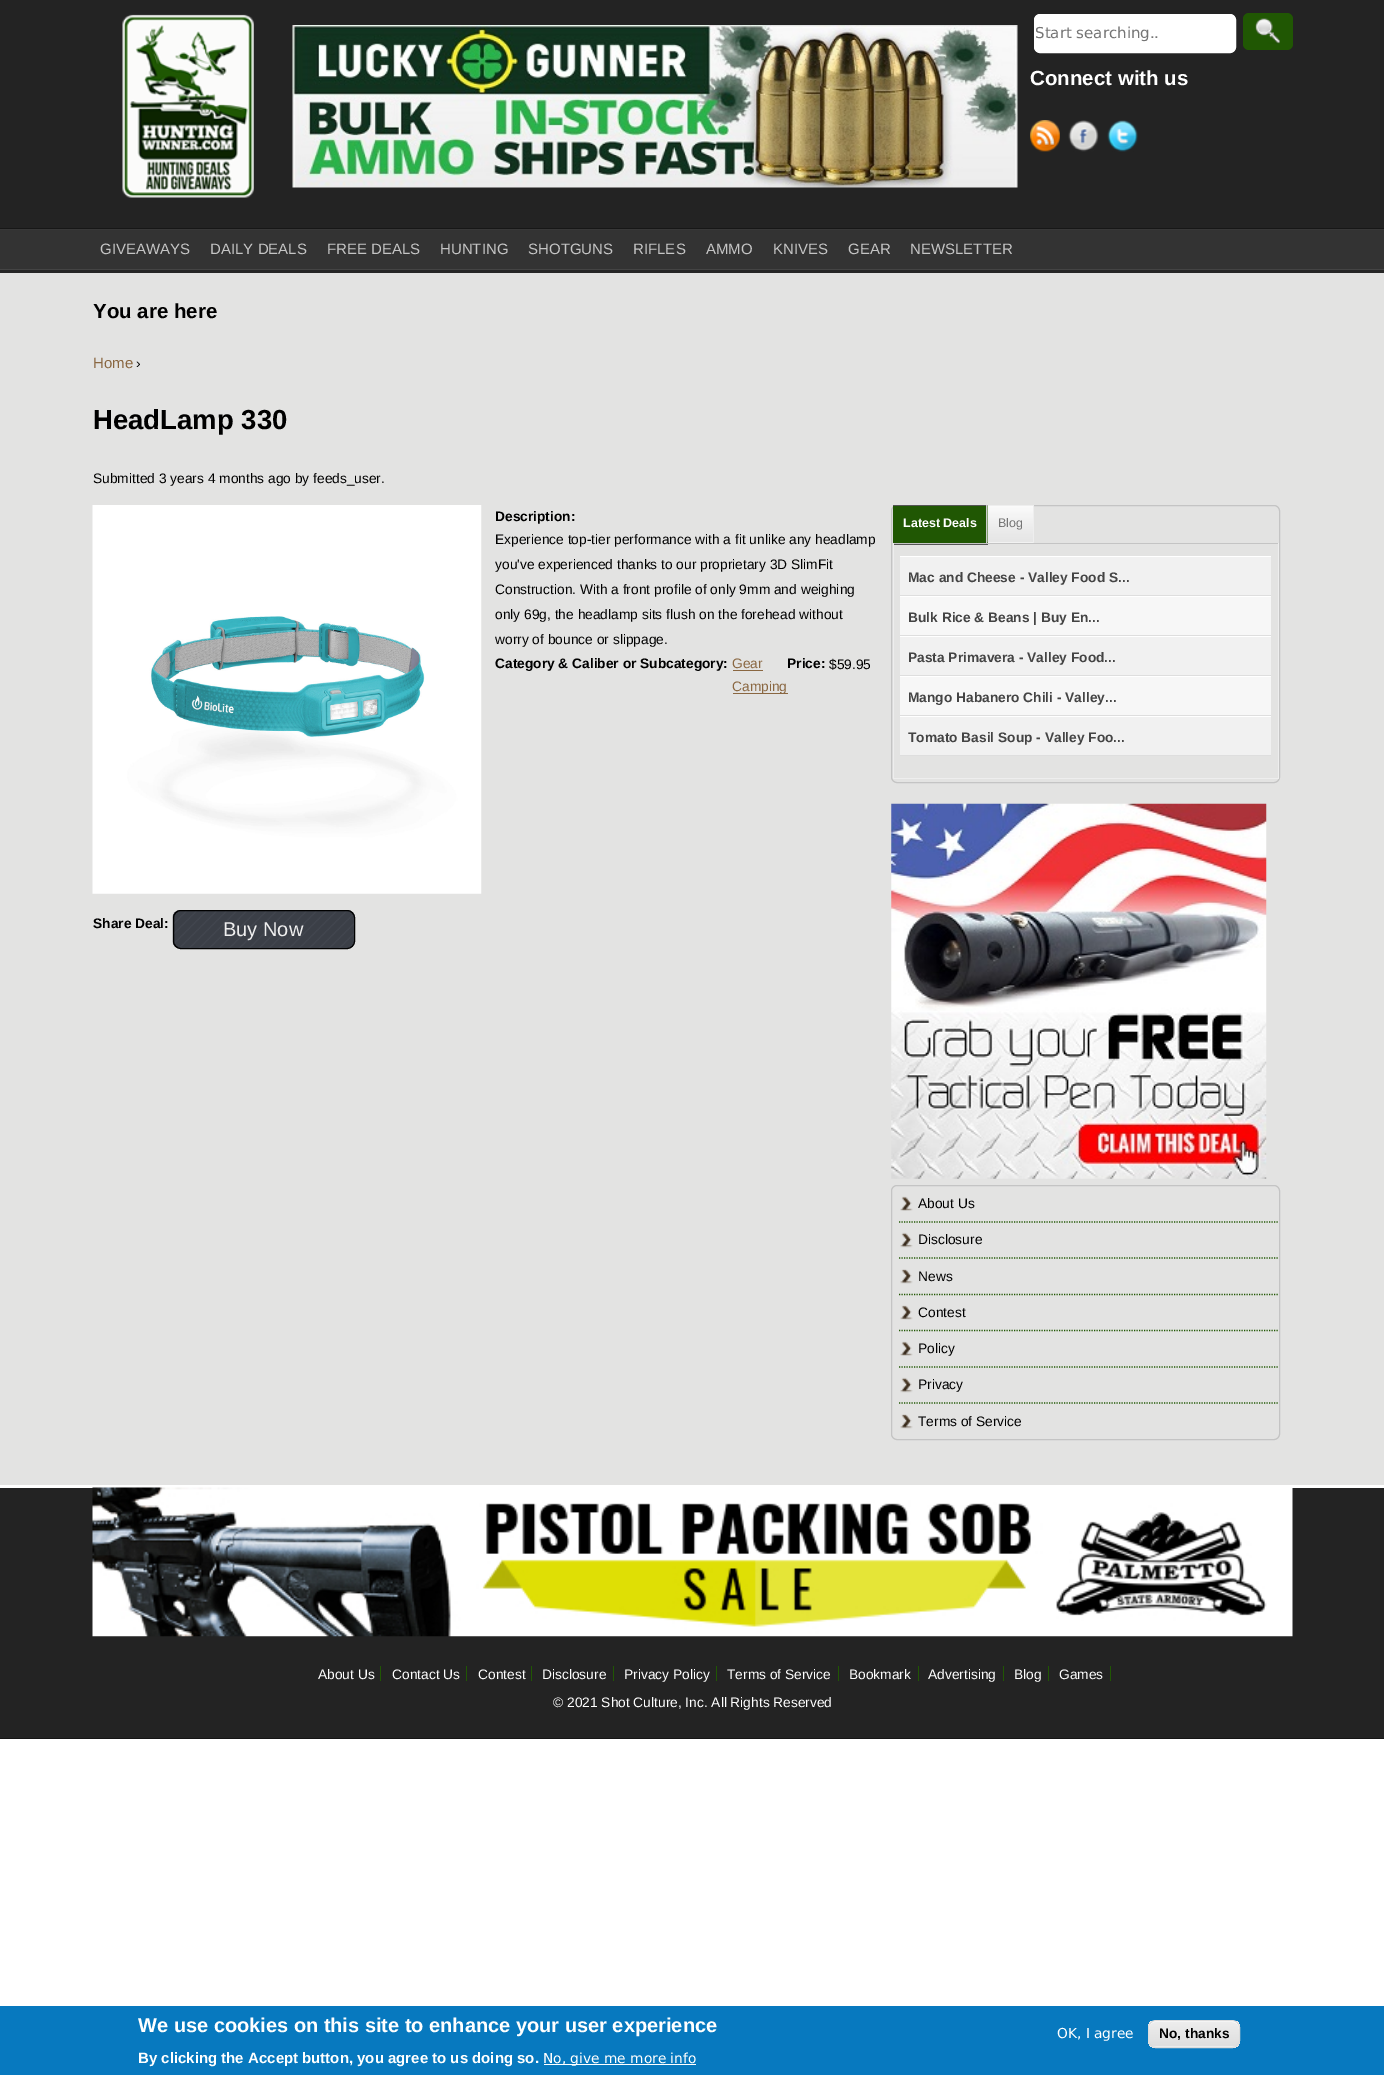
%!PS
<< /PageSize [1384 2075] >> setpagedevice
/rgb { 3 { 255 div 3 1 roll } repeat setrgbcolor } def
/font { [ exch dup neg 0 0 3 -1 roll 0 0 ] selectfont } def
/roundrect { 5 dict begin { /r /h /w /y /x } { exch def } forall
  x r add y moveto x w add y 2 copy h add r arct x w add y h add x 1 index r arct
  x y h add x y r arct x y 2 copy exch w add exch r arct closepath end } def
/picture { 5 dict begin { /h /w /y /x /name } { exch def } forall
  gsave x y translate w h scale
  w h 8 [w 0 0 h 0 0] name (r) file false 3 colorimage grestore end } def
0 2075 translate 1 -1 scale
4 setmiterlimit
255 255 255 rgb
0 0 1384 2075 rectfill
35 35 35 rgb
0 0 1384 228 rectfill
(img/1.rgb) 122 14 132 184 picture
(img/2.rgb) 292 25 726 163 picture
255 255 255 rgb
1034.5 14.5 201 38 5.5 roundrect gsave fill grestore
stroke
32 87 3 rgb
1243 13 50 37 6 roundrect fill
(img/3.rgb) 1255 18 25 26 picture
(img/4.rgb) 1030 120 30 32 picture
(img/5.rgb) 1068 120 31 32 picture
(img/6.rgb) 1107 120 31 32 picture
[
  [0 273 1384 1212 227 227 226]
  [0 228 1384 1 23 23 23]
  [0 270 1384 3 38 38 38]
  [0 230 1384 39 51 51 51]
  [0 229 1384 1 56 56 56]
  [0 269 1384 1 68 68 68]
] { aload pop rgb rectfill } forall
(img/7.rgb) 92 505 390 389 picture
(img/8.rgb) 172 910 183 39 picture
0 0 0 rgb
173.5 910.5 181 38 7.5 roundrect stroke
138 103 65 rgb
733 670 30 1 rectfill
733 693 55 1 rectfill
196 196 196 rgb
891.5 505.5 388 277 5.5 roundrect stroke
[
  [893 506 95 37 32 87 3]
  [893 505 95 1 85 85 85]
  [986 505 1 40 204 204 204]
  [893 544 95 1 85 85 85]
  [988 542 45 1 255 255 255]
] { aload pop rgb rectfill } forall
(img/9.rgb) 987 505 46 38 picture
[
  [988 505 46 1 238 238 238]
  [1033 505 1 38 238 238 238]
  [893 543 386 1 196 196 196]
  [1278 543 1 236 238 238 238]
  [893 778 386 1 238 238 238]
  [893 543 1 236 238 238 238]
  [900 557 371 38 241 241 241]
  [900 556 371 1 255 255 255]
  [900 595 371 1 222 222 222]
  [900 597 371 38 247 247 247]
  [900 596 371 1 255 255 255]
  [900 635 371 1 222 222 222]
  [900 637 371 38 241 241 241]
  [900 636 371 1 255 255 255]
  [900 675 371 1 222 222 222]
  [900 677 371 38 247 247 247]
  [900 676 371 1 255 255 255]
  [900 715 371 1 222 222 222]
  [900 717 371 38 241 241 241]
  [900 716 371 1 255 255 255]
  [900 755 371 1 222 222 222]
] { aload pop rgb rectfill } forall
(img/10.rgb) 891 803 376 376 picture
196 196 196 rgb
891.5 1185.5 388 254 5.5 roundrect stroke
(img/11.rgb) 900 1196 13 15 picture
32 87 3 rgb
1.2 setlinewidth
[1.25 1.25] 0 setdash
899 1222 moveto 1279 1222 lineto stroke
(img/12.rgb) 900 1232 13 16 picture
899 1258 moveto 1279 1258 lineto stroke
(img/13.rgb) 900 1269 13 15 picture
899 1294.5 moveto 1279 1294.5 lineto stroke
(img/14.rgb) 900 1305 13 15 picture
899 1330.5 moveto 1279 1330.5 lineto stroke
(img/11.rgb) 900 1341 13 15 picture
899 1367 moveto 1279 1367 lineto stroke
(img/12.rgb) 900 1377 13 16 picture
899 1403 moveto 1279 1403 lineto stroke
(img/13.rgb) 900 1414 13 15 picture
35 35 35 rgb
0 1488 1384 250 rectfill
21 21 21 rgb
0 1738 1384 1 rectfill
(img/15.rgb) 92 1487 1201 150 picture
[
  [380 1666 1 15 32 87 3]
  [466 1666 1 15 32 87 3]
  [531 1666 1 15 32 87 3]
  [613 1666 1 15 32 87 3]
  [716 1666 1 15 32 87 3]
  [838 1666 1 15 32 87 3]
  [918 1666 1 15 32 87 3]
  [1003 1666 1 15 32 87 3]
  [1048 1666 1 15 32 87 3]
  [1110 1666 1 15 32 87 3]
  [0 2006 1384 69 7 121 191]
  [544 2064 152 1 255 255 255]
] { aload pop rgb rectfill } forall
gsave
1148 2020 92 28 8 roundrect clip newpath
gsave 1148 2021 moveto 1240 2021 lineto 1240 2046 lineto 1148 2046 lineto closepath clip newpath
<< /ShadingType 2 /ColorSpace /DeviceRGB /Coords [1194 2021 1194 2046] /Extend [true true] /Function << /FunctionType 3 /Domain [0 1] /Functions [<< /FunctionType 2 /Domain [0 1] /C0 [0.929 0.929 0.929] /C1 [0.929 0.929 0.929] /N 1 >> << /FunctionType 2 /Domain [0 1] /C0 [0.929 0.929 0.929] /C1 [0.875 0.875 0.875] /N 1 >>] /Bounds [0.05] /Encode [0 1 0 1] >> >> shfill grestore
gsave 1148 2046 moveto 1240 2046 lineto 1240 2048 lineto 1148 2048 lineto closepath clip newpath
<< /ShadingType 2 /ColorSpace /DeviceRGB /Coords [1194 2046 1194 2071] /Extend [true true] /Function << /FunctionType 3 /Domain [0 1] /Functions [<< /FunctionType 2 /Domain [0 1] /C0 [0.929 0.929 0.929] /C1 [0.929 0.929 0.929] /N 1 >> << /FunctionType 2 /Domain [0 1] /C0 [0.929 0.929 0.929] /C1 [0.875 0.875 0.875] /N 1 >>] /Bounds [0.05] /Encode [0 1 0 1] >> >> shfill grestore
grestore
1155 2022 moveto 1232 2022 lineto 1236 2022 1239 2025 1239 2029 curveto 1239 2018 1229 2021 1220 2021 curveto 1168 2021 lineto 1159 2021 1149 2018 1149 2029 curveto 1149 2025 1152 2022 1155 2022 curveto closepath fill
220 220 220 rgb
1 setlinewidth
[] 0 setdash
1148.5 2020.5 91 27 7.5 roundrect stroke
/DejaVuSans-Regular 15 font
117 117 117 rgb
1035 38 moveto (Start searching..) show
/LiberationSans-Bold 20.5 font
255 255 255 rgb
1030 85 moveto (Connect with us) show
/LiberationSans-Regular 15 font
197 197 197 rgb
[
  [(GIVEAWAYS) 100 254]
  [(DAILY DEALS) 210 254]
  [(FREE DEALS) 327 254]
  [(HUNTING) 440 254]
  [(SHOTGUNS) 528 254]
  [(RIFLES) 633 254]
  [(AMMO) 706 254]
  [(KNIVES) 773 254]
  [(GEAR) 848 254]
  [(NEWSLETTER) 910 254]
] { aload pop moveto show } forall
/LiberationSans-Bold 20.5 font
0 0 0 rgb
93 318 moveto (You are here) show
/LiberationSans-Regular 15 font
138 103 65 rgb
93 368 moveto (Home) show
/LiberationSans-Regular 13.75 font
0 0 0 rgb
136 368 moveto (›) show
/LiberationSans-Bold 27.5 font
93 429 moveto (HeadLamp 330) show
/LiberationSans-Regular 13.75 font
93 483 moveto (Submitted 3 years 4 months ago by feeds_user.) show
/LiberationSans-Bold 13.75 font
93 928 moveto (Share Deal:) show
/LiberationSans-Regular 20 font
238 238 238 rgb
223 936 moveto (Buy Now) show
/LiberationSans-Bold 13.75 font
0 0 0 rgb
495 521 moveto (Description:) show
/LiberationSans-Regular 13.75 font
[
  [(Experience top-tier performance with a fit unlike any headlamp) 495 544]
  [(you've experienced thanks to our proprietary 3D SlimFit) 495 569]
  [(Construction. With a front profile of only 9mm and weighing) 495 594]
  [(only 69g, the headlamp sits flush on the forehead without) 495 619]
  [(worry of bounce or slippage.) 495 644]
] { aload pop moveto show } forall
/LiberationSans-Bold 13.75 font
495 668 moveto (Category & Caliber or Subcategory:) show
/LiberationSans-Regular 13.75 font
138 103 65 rgb
732 668 moveto (Gear) show
732 691 moveto (Camping) show
/LiberationSans-Bold 13.75 font
0 0 0 rgb
787 668 moveto (Price:) show
/LiberationSans-Regular 13.75 font
829 669 moveto ($59.95) show
/LiberationSans-Bold 12.5 font
255 255 255 rgb
903 527 moveto (Latest Deals) show
/LiberationSans-Regular 12.5 font
117 117 117 rgb
998 527 moveto (Blog) show
/LiberationSans-Bold 13.75 font
68 68 68 rgb
[
  [(Mac and Cheese - Valley Food S...) 908 582]
  [(Bulk Rice & Beans | Buy En...) 908 622]
  [(Pasta Primavera - Valley Food...) 908 662]
  [(Mango Habanero Chili - Valley...) 908 702]
  [(Tomato Basil Soup - Valley Foo...) 908 742]
] { aload pop moveto show } forall
/LiberationSans-Regular 13.75 font
0 0 0 rgb
[
  [(About Us) 918 1208]
  [(Disclosure) 918 1244]
  [(News) 918 1281]
  [(Contest) 918 1317]
  [(Policy) 918 1353]
  [(Privacy) 918 1389]
  [(Terms of Service) 918 1426]
] { aload pop moveto show } forall
255 255 255 rgb
[
  [(About Us) 318 1679]
  [(Contact Us) 392 1679]
  [(Contest) 478 1679]
  [(Disclosure) 542 1679]
  [(Privacy Policy) 624 1679]
  [(Terms of Service) 727 1679]
  [(Bookmark) 849 1679]
  [(Advertising) 928 1679]
  [(Blog) 1014 1679]
  [(Games) 1059 1679]
  [(© 2021 Shot Culture, Inc. All Rights Reserved) 553 1707]
] { aload pop moveto show } forall
/LiberationSans-Bold 20 font
138 2032 moveto (We use cookies on this site to enhance your user experience) show
/LiberationSans-Bold 15 font
138 2063 moveto (By clicking the Accept button, you agree to us doing so.) show
/DejaVuSans-Regular 13.75 font
543 2063 moveto (No, give me more info) show
1057 2038 moveto (OK, I agree) show
/LiberationSans-Bold 13.75 font
0 0 0 rgb
1159 2038 moveto (No, thanks) show
showpage
